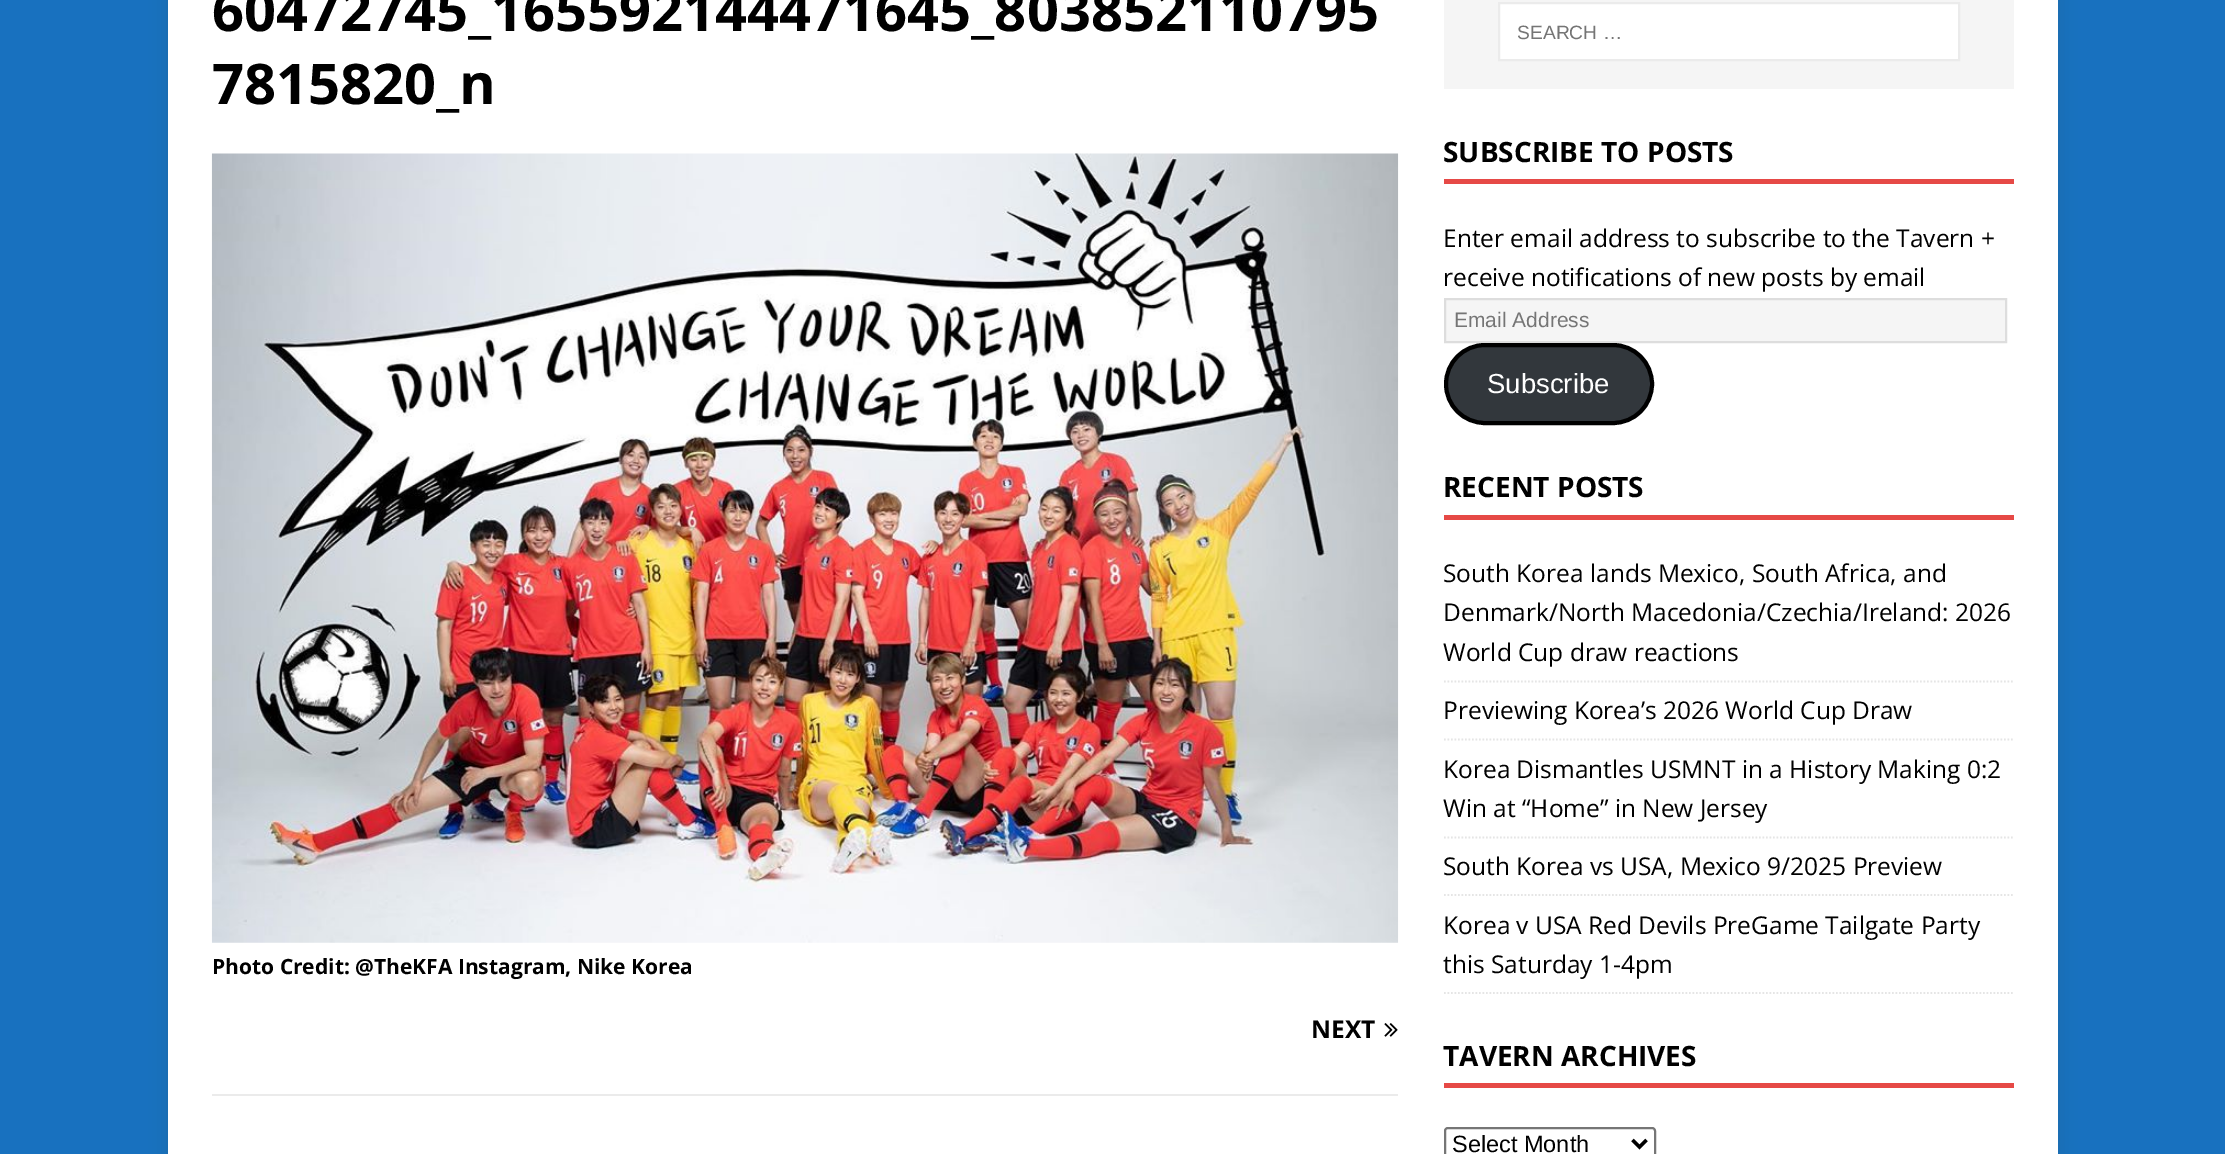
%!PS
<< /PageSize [2225 1154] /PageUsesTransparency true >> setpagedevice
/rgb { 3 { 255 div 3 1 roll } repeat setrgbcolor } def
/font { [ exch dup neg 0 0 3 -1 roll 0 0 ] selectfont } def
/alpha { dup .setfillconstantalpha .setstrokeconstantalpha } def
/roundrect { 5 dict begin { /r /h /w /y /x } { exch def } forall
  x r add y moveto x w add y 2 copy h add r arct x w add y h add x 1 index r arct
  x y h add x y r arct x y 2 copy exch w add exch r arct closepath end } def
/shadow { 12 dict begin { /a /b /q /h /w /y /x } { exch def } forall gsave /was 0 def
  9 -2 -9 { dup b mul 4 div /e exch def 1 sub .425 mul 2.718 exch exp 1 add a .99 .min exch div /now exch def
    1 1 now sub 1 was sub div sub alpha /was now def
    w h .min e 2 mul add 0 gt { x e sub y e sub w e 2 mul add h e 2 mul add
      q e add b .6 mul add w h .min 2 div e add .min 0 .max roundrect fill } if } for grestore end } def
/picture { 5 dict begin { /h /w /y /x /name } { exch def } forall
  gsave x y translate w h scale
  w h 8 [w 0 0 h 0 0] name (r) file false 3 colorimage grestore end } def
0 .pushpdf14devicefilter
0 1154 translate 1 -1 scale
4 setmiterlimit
24 113 191 rgb
0 0 2225 1154 rectfill
50 50 50 rgb
168 -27 1890 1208 0 9 0.17 shadow
255 255 255 rgb
168 0 1890 1154 rectfill
(img/1.rgb) 211 153 1188 790 picture
235 235 235 rgb
212 1094 1186 2 rectfill
(img/2.rgb) 1384 1023 14 14 picture
245 245 245 rgb
1444 0 570 89 rectfill
255 255 255 rgb
1499 3 moveto 1959 3 lineto 1959 60 lineto 1499 60 lineto closepath gsave fill grestore
235 235 235 rgb
2 setlinewidth
stroke
230 73 70 rgb
1444 179 570 5 rectfill
245 245 245 rgb
1445 299 moveto 2006 299 lineto 2006 342 lineto 1445 342 lineto closepath gsave fill grestore
221 221 221 rgb
stroke
50 55 60 rgb
1446 345 206 78 39 roundrect gsave fill grestore
0 0 0 rgb
4 setlinewidth
stroke
230 73 70 rgb
1444 515 570 5 rectfill
229 229 229 rgb
1.8 setlinewidth
[1.75 1.75] 0 setdash
1444 681.5 moveto 2014 681.5 lineto stroke
1444 739.5 moveto 2014 739.5 lineto stroke
1444 837.5 moveto 2014 837.5 lineto stroke
1444 895 moveto 2014 895 lineto stroke
1444 993 moveto 2014 993 lineto stroke
230 73 70 rgb
1444 1083 570 5 rectfill
118 118 118 rgb
2 setlinewidth
[] 0 setdash
1445 1128 210 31 3 roundrect stroke
0 0 0 rgb
3.5 setlinewidth
1632.5 1140 moveto 1639.5 1147 lineto 1646.5 1140 lineto stroke
/OpenSans-Bold 56 font
212 31 moveto (60472745_165592144471645_803852110795) show
212 104 moveto (7815820_n) show
/OpenSans-Bold 21 font
212 974 moveto (Photo Credit: @TheKFA Instagram, Nike Korea) show
/OpenSans-Bold 24.5 font
1311 1038 moveto (NEXT) show
/LiberationSans-Regular 19.25 font
117 117 117 rgb
1517 39 moveto (SEARCH …) show
/OpenSans-Bold 28 font
0 0 0 rgb
1443 162 moveto (SUBSCRIBE TO POSTS) show
/OpenSans-Regular 24.5 font
1443 247 moveto (Enter email address to subscribe to the Tavern +) show
1443 286 moveto (receive notifications of new posts by email) show
/LiberationSans-Regular 21 font
117 117 117 rgb
1454 327 moveto (Email Address) show
/LiberationSans-Regular 27.5 font
255 255 255 rgb
1487 393 moveto (Subscribe) show
/OpenSans-Bold 28 font
0 0 0 rgb
1443 497 moveto (RECENT POSTS) show
/OpenSans-Regular 24.5 font
[
  [(South Korea lands Mexico, South Africa, and) 1443 582]
  [(Denmark/North Macedonia/Czechia/Ireland: 2026) 1443 621]
  [(World Cup draw reactions) 1443 661]
  [(Previewing Korea’s 2026 World Cup Draw) 1443 719]
  [(Korea Dismantles USMNT in a History Making 0:2) 1443 778]
  [(Win at “Home” in New Jersey) 1443 817]
  [(South Korea vs USA, Mexico 9/2025 Preview) 1443 875]
  [(Korea v USA Red Devils PreGame Tailgate Party) 1443 934]
  [(this Saturday 1-4pm) 1443 973]
] { aload pop moveto show } forall
/OpenSans-Bold 28 font
1443 1066 moveto (TAVERN ARCHIVES) show
/LiberationSans-Regular 23.5 font
1452 1152 moveto (Select Month) show
.poppdf14devicefilter showpage
